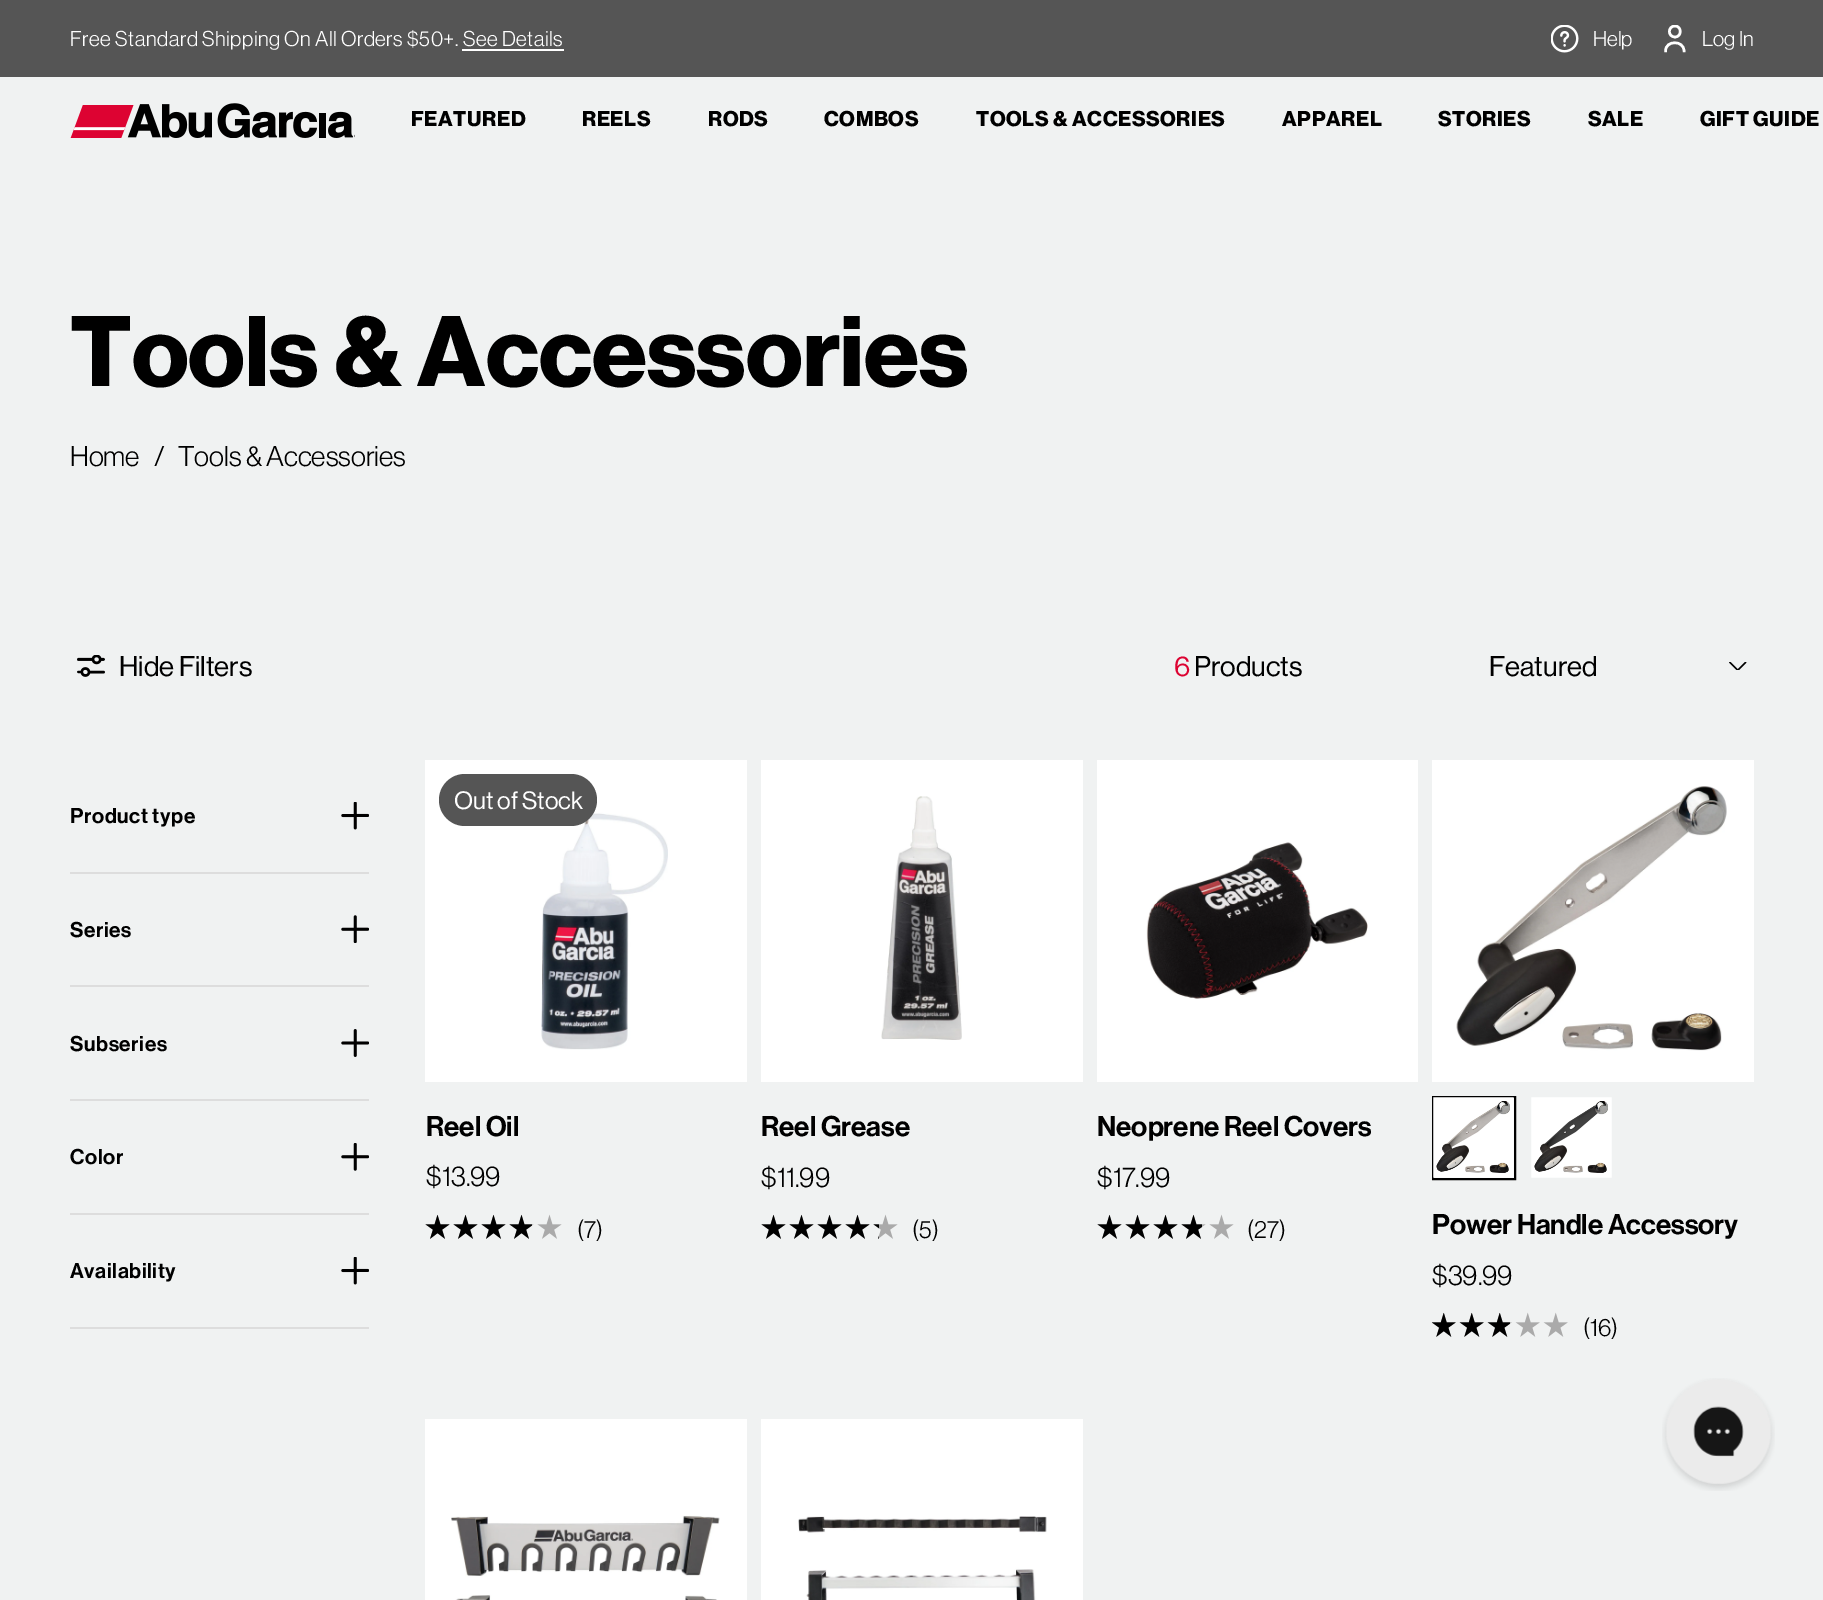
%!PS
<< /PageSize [1823 1600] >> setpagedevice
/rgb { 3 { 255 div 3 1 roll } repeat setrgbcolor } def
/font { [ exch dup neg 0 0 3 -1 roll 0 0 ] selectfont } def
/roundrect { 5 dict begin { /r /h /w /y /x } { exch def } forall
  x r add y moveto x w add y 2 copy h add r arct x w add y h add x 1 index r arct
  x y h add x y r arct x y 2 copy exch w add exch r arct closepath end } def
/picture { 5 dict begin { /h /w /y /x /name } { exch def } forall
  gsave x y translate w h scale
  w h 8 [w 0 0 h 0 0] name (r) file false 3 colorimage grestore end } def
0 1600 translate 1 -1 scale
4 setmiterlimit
240 242 242 rgb
0 0 1823 1600 rectfill
85 85 85 rgb
0 0 1823 77 rectfill
255 255 255 rgb
462 49 102 2 rectfill
(img/1.rgb) 1551 25 28 28 picture
gsave
1661 25 28 28 rectclip
2.5 setlinewidth
1675 37 moveto 1682 37 1682 26 1675 26 curveto 1667.5 26 1667.5 37 1675 37 curveto closepath stroke
grestore
2.5 setlinewidth
2 setlinecap
1684 51 moveto 1684 40 1665.5 40 1665.5 51 curveto stroke
(img/2.rgb) 70 103 285 35 picture
(img/3.rgb) 77 655 28 22 picture
(img/4.rgb) 1729 662 18 8 picture
221 221 221 rgb
70 872 299 2 rectfill
(img/5.rgb) 341 802 28 28 picture
70 985 299 2 rectfill
(img/6.rgb) 341 915 28 28 picture
70 1099 299 2 rectfill
(img/7.rgb) 341 1029 28 28 picture
70 1213 299 2 rectfill
(img/8.rgb) 341 1143 28 28 picture
70 1327 299 2 rectfill
(img/5.rgb) 341 1257 28 28 picture
255 255 255 rgb
425 760 322 322 rectfill
(img/9.rgb) 541 786 127 264 picture
85 85 85 rgb
439 774 158 52 26 roundrect fill
(img/10.rgb) 425 1214 137 25 picture
(img/11.rgb) 425 1215 107 24 picture
255 255 255 rgb
761 760 322 322 rectfill
(img/12.rgb) 881 796 81 244 picture
(img/10.rgb) 761 1214 137 25 picture
(img/13.rgb) 761 1215 118 24 picture
1097 760 321 322 rectfill
(img/14.rgb) 1146 842 222 157 picture
(img/10.rgb) 1097 1214 137 25 picture
(img/15.rgb) 1097 1215 105 24 picture
1432 760 322 322 rectfill
(img/16.rgb) 1456 786 271 265 picture
0 0 0 rgb
2 setlinewidth
0 setlinecap
1433 1097 82 82 rectstroke
(img/17.rgb) 1433 1097 81 81 picture
(img/18.rgb) 1531 1097 81 81 picture
(img/19.rgb) 1431 1312 137 25 picture
(img/20.rgb) 1432 1313 78 24 picture
255 255 255 rgb
425 1419 322 181 rectfill
(img/21.rgb) 451 1515 269 85 picture
761 1419 322 181 rectfill
(img/22.rgb) 798 1516 249 84 picture
(img/23.rgb) 1662 1378 113 113 picture
/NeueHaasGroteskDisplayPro-Regular 21 font
70 46 moveto 0.53 0 (Free Standard Shipping On All Orders $50+. See Details) ashow
1593 46 moveto (Help) show
1702 46 moveto (Log In) show
/NeueHaasGroteskDisplayPro-Bold 21 font
0 0 0 rgb
411 126 moveto 0.6 0 (FEATURED) ashow
582 126 moveto 0.6 0 (REELS) ashow
708 126 moveto 0.6 0 (RODS) ashow
824 126 moveto 0.6 0 (COMBOS) ashow
976 126 moveto 0.6 0 (TOOLS & ACCESSORIES) ashow
1282 126 moveto 0.6 0 (APPAREL) ashow
1438 126 moveto 0.6 0 (STORIES) ashow
1588 126 moveto 0.6 0 (SALE) ashow
1700 126 moveto 0.6 0 (GIFT GUIDE) ashow
/NeueHaasGroteskDisplayPro-Bold 98 font
70 386 moveto (Tools & Accessories) show
/NeueHaasGroteskDisplayPro-Regular 28 font
[
  [(Home) 70 466]
  [(/) 154 466]
  [(Tools & Accessories) 178 466]
] { aload pop moveto show } forall
/NeueHaasGroteskDisplayPro-Medium 28 font
119 676 moveto (Hide Filters) show
221 3 50 rgb
1174 676 moveto (6) show
0 0 0 rgb
1194 676 moveto (Products) show
1489 676 moveto (Featured) show
/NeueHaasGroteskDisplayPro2-Medium 21 font
70 823 moveto 0.6 0 (Product type) ashow
70 937 moveto 0.6 0 (Series) ashow
70 1051 moveto 0.6 0 (Subseries) ashow
70 1164 moveto 0.6 0 (Color) ashow
70 1278 moveto 0.6 0 (Availability) ashow
/NeueHaasGroteskDisplayPro-Medium 24.5 font
255 255 255 rgb
454 809 moveto (Out of Stock) show
/NeueHaasGroteskDisplayPro2-Medium 28 font
0 0 0 rgb
426 1136 moveto (Reel Oil) show
/NeueHaasGroteskDisplayPro-Regular 28 font
426 1186 moveto ($13.99) show
/NeueHaasGroteskDisplayPro-Regular 24.5 font
577 1238 moveto (\(7\)) show
/NeueHaasGroteskDisplayPro2-Medium 28 font
761 1136 moveto (Reel Grease) show
/NeueHaasGroteskDisplayPro-Regular 28 font
761 1187 moveto ($11.99) show
/NeueHaasGroteskDisplayPro-Regular 24.5 font
912 1238 moveto (\(5\)) show
/NeueHaasGroteskDisplayPro2-Medium 28 font
1097 1136 moveto (Neoprene Reel Covers) show
/NeueHaasGroteskDisplayPro-Regular 28 font
1097 1187 moveto ($17.99) show
/NeueHaasGroteskDisplayPro-Regular 24.5 font
1247 1238 moveto (\(27\)) show
/NeueHaasGroteskDisplayPro2-Medium 28 font
1432 1234 moveto (Power Handle Accessory) show
/NeueHaasGroteskDisplayPro-Regular 28 font
1432 1285 moveto ($39.99) show
/NeueHaasGroteskDisplayPro-Regular 24.5 font
1583 1336 moveto (\(16\)) show
showpage
